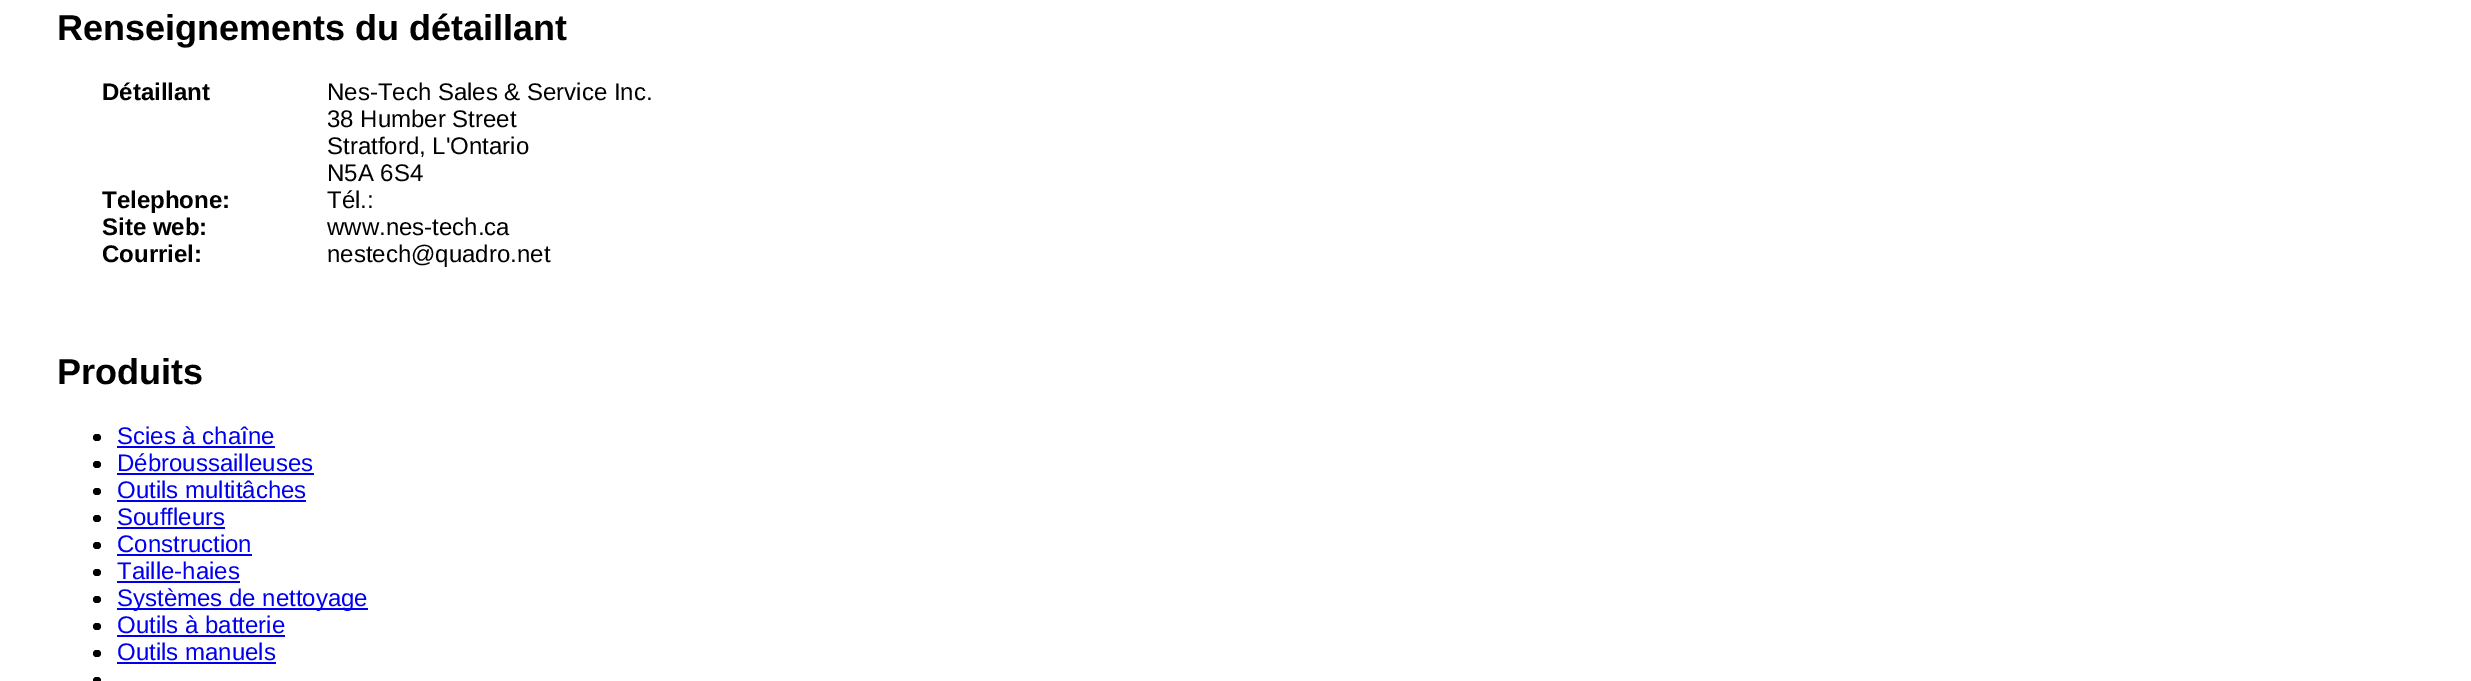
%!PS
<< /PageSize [2471 681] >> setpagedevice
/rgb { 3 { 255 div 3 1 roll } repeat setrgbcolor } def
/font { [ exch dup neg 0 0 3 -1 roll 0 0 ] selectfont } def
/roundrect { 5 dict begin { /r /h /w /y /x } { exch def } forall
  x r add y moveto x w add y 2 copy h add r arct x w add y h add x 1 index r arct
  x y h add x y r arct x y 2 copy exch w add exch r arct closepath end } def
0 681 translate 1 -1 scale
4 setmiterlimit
255 255 255 rgb
0 0 2471 681 rectfill
0 0 0 rgb
93 434 8 7 3.5 roundrect fill
0 0 238 rgb
117 446 158 2 rectfill
0 0 0 rgb
93 461 8 7 3.5 roundrect fill
0 0 238 rgb
117 473 197 2 rectfill
0 0 0 rgb
93 488 8 7 3.5 roundrect fill
0 0 238 rgb
117 500 189 2 rectfill
0 0 0 rgb
93 515 8 7 3.5 roundrect fill
0 0 238 rgb
117 527 108 2 rectfill
0 0 0 rgb
93 542 8 7 3.5 roundrect fill
0 0 238 rgb
117 554 135 2 rectfill
0 0 0 rgb
93 569 8 7 3.5 roundrect fill
0 0 238 rgb
117 581 123 2 rectfill
0 0 0 rgb
93 596 8 7 3.5 roundrect fill
0 0 238 rgb
117 608 251 2 rectfill
0 0 0 rgb
93 623 8 7 3.5 roundrect fill
0 0 238 rgb
117 635 168 2 rectfill
0 0 0 rgb
93 650 8 7 3.5 roundrect fill
0 0 238 rgb
117 662 159 2 rectfill
0 0 0 rgb
93 677 8 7 3.5 roundrect fill
/LiberationSans-Bold 36 font
57 40 moveto (Renseignements du détaillant) show
/LiberationSans-Bold 24 font
102 100 moveto (Détaillant) show
/LiberationSans-Regular 24 font
[
  [(Nes-Tech Sales & Service Inc.) 327 100]
  [(38 Humber Street) 327 127]
  [(Stratford, L'Ontario) 327 154]
  [(N5A 6S4) 327 181]
] { aload pop moveto show } forall
/LiberationSans-Bold 24 font
102 208 moveto (Telephone:) show
/LiberationSans-Regular 24 font
327 208 moveto (Tél.:) show
/LiberationSans-Bold 24 font
102 235 moveto (Site web:) show
/LiberationSans-Regular 24 font
327 235 moveto (www.nes-tech.ca) show
/LiberationSans-Bold 24 font
102 262 moveto (Courriel:) show
/LiberationSans-Regular 24 font
327 262 moveto (nestech@quadro.net) show
/LiberationSans-Bold 36 font
57 384 moveto (Produits) show
/LiberationSans-Regular 24 font
0 0 238 rgb
[
  [(Scies à chaîne) 117 444]
  [(Débroussailleuses) 117 471]
  [(Outils multitâches) 117 498]
  [(Souffleurs) 117 525]
  [(Construction) 117 552]
  [(Taille-haies) 117 579]
  [(Systèmes de nettoyage) 117 606]
  [(Outils à batterie) 117 633]
  [(Outils manuels) 117 660]
] { aload pop moveto show } forall
showpage
